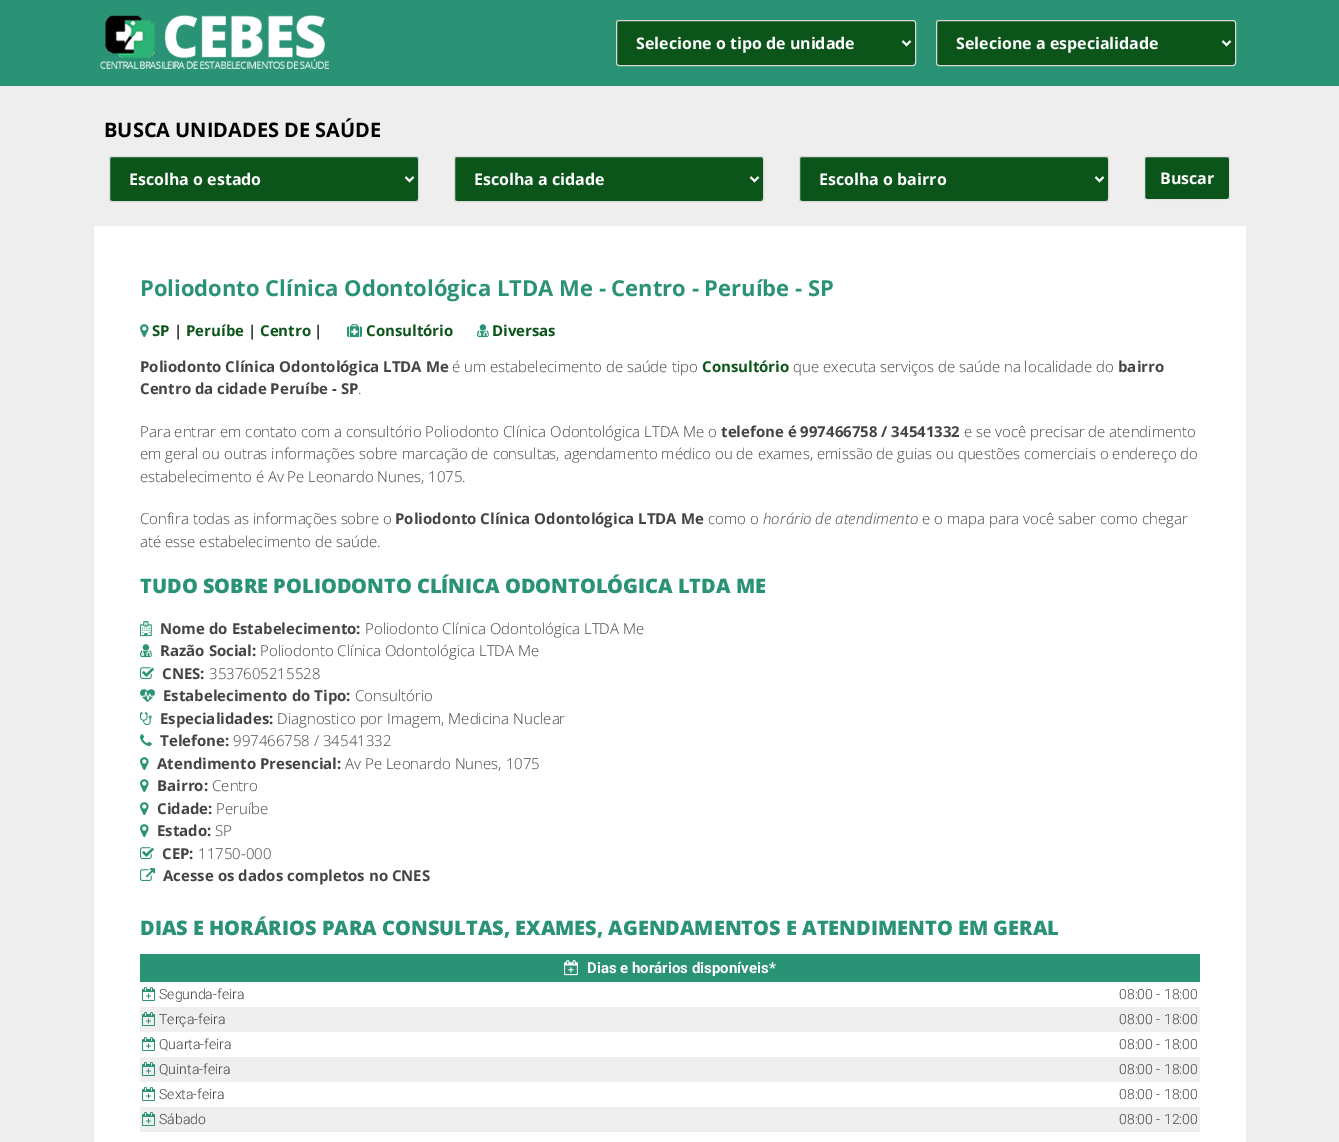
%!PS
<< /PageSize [1339 1142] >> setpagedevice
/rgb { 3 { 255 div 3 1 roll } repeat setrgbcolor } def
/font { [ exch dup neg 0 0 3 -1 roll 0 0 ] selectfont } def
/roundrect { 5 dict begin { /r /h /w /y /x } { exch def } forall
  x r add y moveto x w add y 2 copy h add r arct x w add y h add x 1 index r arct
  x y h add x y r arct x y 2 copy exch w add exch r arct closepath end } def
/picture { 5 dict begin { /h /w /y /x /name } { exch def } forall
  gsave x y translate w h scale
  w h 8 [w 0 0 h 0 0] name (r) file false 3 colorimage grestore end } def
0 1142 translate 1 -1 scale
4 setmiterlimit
238 238 238 rgb
0 0 1339 1142 rectfill
43 147 117 rgb
0 0 1339 86 rectfill
(img/1.rgb) 100 15 229 54 picture
11 85 26 rgb
616.5 20.5 299 45 2.5 roundrect gsave fill grestore
216 216 216 rgb
stroke
255 255 255 rgb
2 setlinewidth
902.5 41 moveto 906.5 45 lineto 910.5 41 lineto stroke
11 85 26 rgb
936.5 20.5 299 45 2.5 roundrect gsave fill grestore
216 216 216 rgb
1 setlinewidth
stroke
255 255 255 rgb
2 setlinewidth
1222.5 41 moveto 1226.5 45 lineto 1230.5 41 lineto stroke
11 85 26 rgb
109.5 156.5 309 45 2.5 roundrect gsave fill grestore
216 216 216 rgb
1 setlinewidth
stroke
255 255 255 rgb
2 setlinewidth
405.5 177 moveto 409.5 181 lineto 413.5 177 lineto stroke
11 85 26 rgb
454.5 156.5 309 45 2.5 roundrect gsave fill grestore
216 216 216 rgb
1 setlinewidth
stroke
255 255 255 rgb
2 setlinewidth
750.5 177 moveto 754.5 181 lineto 758.5 177 lineto stroke
11 85 26 rgb
799.5 156.5 309 45 2.5 roundrect gsave fill grestore
216 216 216 rgb
1 setlinewidth
stroke
255 255 255 rgb
2 setlinewidth
1095.5 177 moveto 1099.5 181 lineto 1103.5 177 lineto stroke
11 85 26 rgb
1144.5 156.5 85 43 2.5 roundrect gsave fill grestore
228 228 228 rgb
1 setlinewidth
stroke
255 255 255 rgb
94 226 1152 916 rectfill
(img/2.rgb) 140 324 9 13 picture
(img/3.rgb) 347 324 15 14 picture
(img/4.rgb) 477 324 12 14 picture
(img/5.rgb) 140 621 12 16 picture
(img/4.rgb) 140 644 12 14 picture
(img/6.rgb) 140 667 14 12 picture
(img/7.rgb) 140 689 15 13 picture
(img/8.rgb) 140 712 12 13 picture
(img/9.rgb) 140 734 12 12 picture
(img/2.rgb) 140 757 9 13 picture
(img/2.rgb) 140 779 9 13 picture
(img/2.rgb) 140 802 9 13 picture
(img/2.rgb) 140 824 9 13 picture
(img/6.rgb) 140 847 14 12 picture
(img/10.rgb) 140 868 15 13 picture
43 147 117 rgb
140 954 1060 28 rectfill
(img/11.rgb) 564 960 14 16 picture
(img/12.rgb) 142 987 13 14 picture
239 239 239 rgb
140 1007 1060 25 rectfill
(img/13.rgb) 142 1012 13 14 picture
(img/12.rgb) 142 1037 13 14 picture
140 1057 1060 25 rectfill
(img/13.rgb) 142 1062 13 14 picture
(img/12.rgb) 142 1087 13 14 picture
140 1107 1060 25 rectfill
(img/13.rgb) 142 1112 13 14 picture
/OpenSans-Bold 16 font
255 255 255 rgb
636 49 moveto (Selecione o tipo de unidade) show
956 49 moveto (Selecione a especialidade) show
/OpenSans-Bold 20 font
0 0 0 rgb
104 137 moveto (BUSCA UNIDADES DE SAÚDE) show
/OpenSans-Bold 16 font
255 255 255 rgb
[
  [(Escolha o estado) 129 185]
  [(Escolha a cidade) 474 185]
  [(Escolha o bairro) 819 185]
  [(Buscar) 1160 184]
] { aload pop moveto show } forall
/OpenSans-Bold 22 font
43 147 117 rgb
140 296 moveto (Poliodonto Clínica Odontológica LTDA Me - Centro - Peruíbe - SP) show
/OpenSans-Bold 15 font
11 85 26 rgb
152 336 moveto (SP) show
68 68 68 rgb
174 336 moveto (|) show
11 85 26 rgb
186 336 moveto (Peruíbe) show
68 68 68 rgb
248 336 moveto (|) show
11 85 26 rgb
260 336 moveto (Centro) show
68 68 68 rgb
314 336 moveto (|) show
11 85 26 rgb
366 336 moveto (Consultório) show
492 336 moveto (Diversas) show
68 68 68 rgb
140 372 moveto (Poliodonto Clínica Odontológica LTDA Me) show
/OpenSans-Light 15 font
452 372 moveto (é um estabelecimento de saúde tipo) show
/OpenSans-Bold 15 font
11 85 26 rgb
702 372 moveto (Consultório) show
/OpenSans-Light 15 font
68 68 68 rgb
793 372 moveto (que executa serviços de saúde na localidade do) show
/OpenSans-Bold 15 font
1118 372 moveto (bairro) show
140 394 moveto (Centro da cidade Peruíbe - SP) show
/OpenSans-Light 15 font
358 394 moveto (.) show
140 437 moveto (Para entrar em contato com a consultório Poliodonto Clínica Odontológica LTDA Me o) show
/OpenSans-Bold 15 font
721 437 moveto (telefone é 997466758 / 34541332) show
/OpenSans-Light 15 font
[
  [(e se você precisar de atendimento) 964 437]
  [(em geral ou outras informações sobre marcação de consultas, agendamento médico ou de exames, emissão de guias ou questões comerciais o endereço do) 140 459]
  [(estabelecimento é Av Pe Leonardo Nunes, 1075.) 140 482]
  [(Confira todas as informações sobre o) 140 524]
] { aload pop moveto show } forall
/OpenSans-Bold 15 font
395 524 moveto (Poliodonto Clínica Odontológica LTDA Me) show
/OpenSans-Light 15 font
708 524 moveto (como o) show
/OpenSans-LightItalic 15 font
763 524 moveto (horário de atendimento) show
/OpenSans-Light 15 font
922 524 moveto (e o mapa para você saber como chegar) show
140 547 moveto (até esse estabelecimento de saúde.) show
/OpenSans-ExtraBold 20 font
43 147 117 rgb
140 593 moveto (TUDO SOBRE POLIODONTO CLÍNICA ODONTOLÓGICA LTDA ME) show
/OpenSans-Bold 15 font
68 68 68 rgb
160 634 moveto (Nome do Estabelecimento:) show
/OpenSans-Light 15 font
365 634 moveto (Poliodonto Clínica Odontológica LTDA Me) show
/OpenSans-Bold 15 font
160 656 moveto (Razão Social:) show
/OpenSans-Light 15 font
260 656 moveto (Poliodonto Clínica Odontológica LTDA Me) show
/OpenSans-Bold 15 font
162 679 moveto (CNES:) show
/OpenSans-Light 15 font
209 679 moveto (3537605215528) show
/OpenSans-Bold 15 font
163 701 moveto (Estabelecimento do Tipo:) show
/OpenSans-Light 15 font
355 701 moveto (Consultório) show
/OpenSans-Bold 15 font
160 724 moveto (Especialidades:) show
/OpenSans-Light 15 font
277 724 moveto (Diagnostico por Imagem, Medicina Nuclear) show
/OpenSans-Bold 15 font
160 746 moveto (Telefone:) show
/OpenSans-Light 15 font
233 746 moveto (997466758 / 34541332) show
/OpenSans-Bold 15 font
157 769 moveto (Atendimento Presencial:) show
/OpenSans-Light 15 font
345 769 moveto (Av Pe Leonardo Nunes, 1075) show
/OpenSans-Bold 15 font
157 791 moveto (Bairro:) show
/OpenSans-Light 15 font
212 791 moveto (Centro) show
/OpenSans-Bold 15 font
157 814 moveto (Cidade:) show
/OpenSans-Light 15 font
216 814 moveto (Peruíbe) show
/OpenSans-Bold 15 font
157 836 moveto (Estado:) show
/OpenSans-Light 15 font
215 836 moveto (SP) show
/OpenSans-Bold 15 font
162 859 moveto (CEP:) show
/OpenSans-Light 15 font
198 859 moveto (11750-000) show
/OpenSans-Bold 15 font
163 881 moveto (Acesse os dados completos no CNES) show
/OpenSans-ExtraBold 20 font
43 147 117 rgb
140 935 moveto (DIAS E HORÁRIOS PARA CONSULTAS, EXAMES, AGENDAMENTOS E ATENDIMENTO EM GERAL) show
/Roboto-Bold 15 font
255 255 255 rgb
587 973 moveto (Dias e horários disponíveis*) show
/Roboto-Light 14 font
68 68 68 rgb
[
  [(Segunda-feira) 159 999]
  [(08:00 - 18:00) 1119 999]
  [(Terça-feira) 159 1024]
  [(08:00 - 18:00) 1119 1024]
  [(Quarta-feira) 159 1049]
  [(08:00 - 18:00) 1119 1049]
  [(Quinta-feira) 159 1074]
  [(08:00 - 18:00) 1119 1074]
  [(Sexta-feira) 159 1099]
  [(08:00 - 18:00) 1119 1099]
  [(Sábado) 159 1124]
  [(08:00 - 12:00) 1119 1124]
] { aload pop moveto show } forall
showpage
